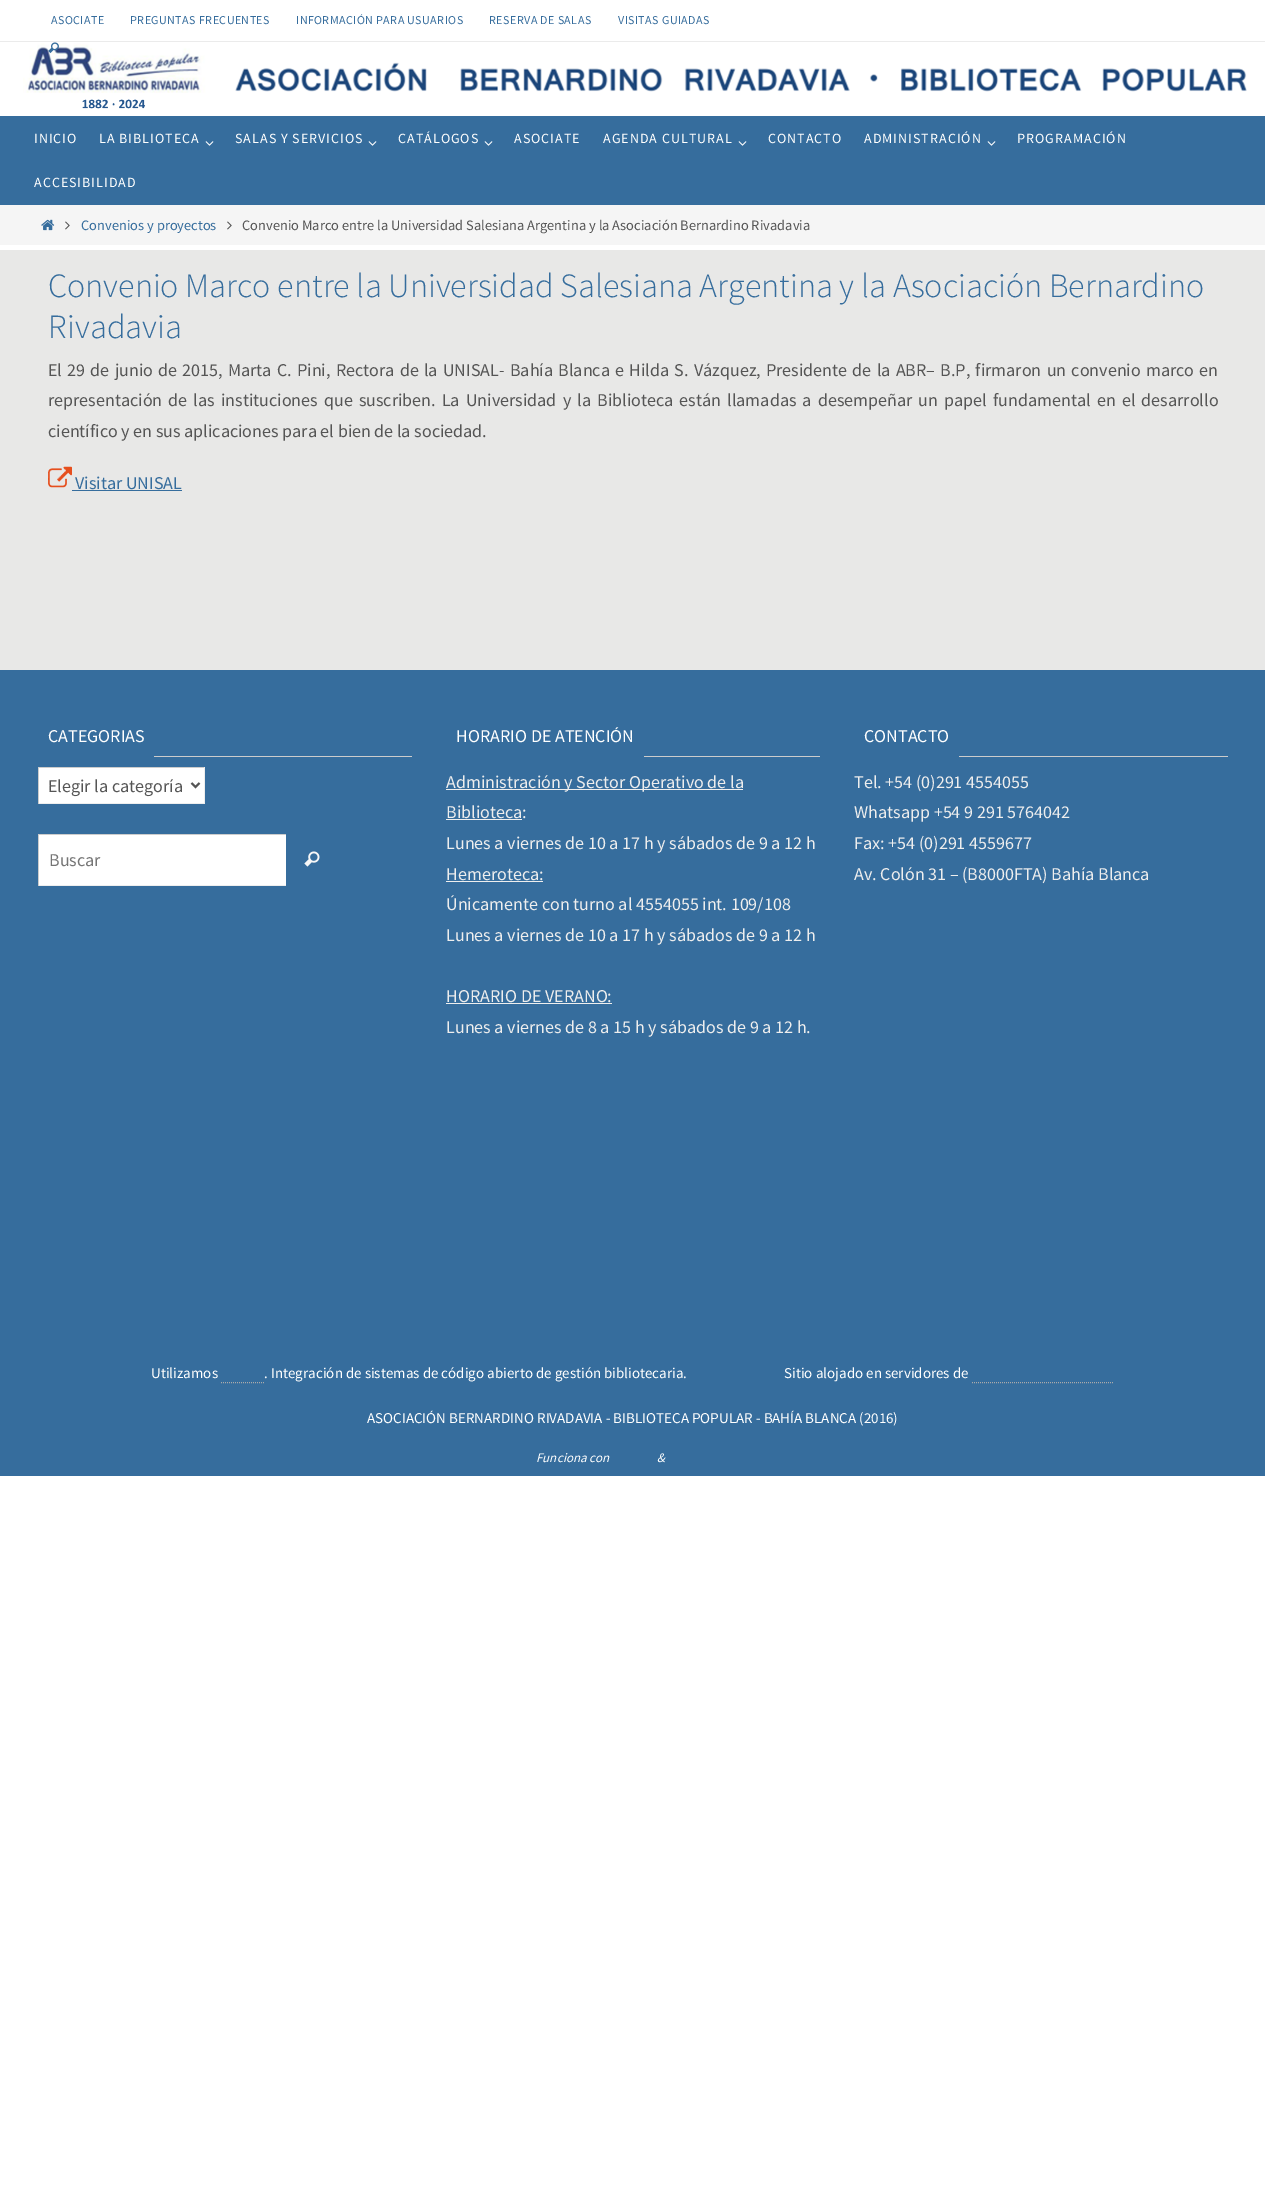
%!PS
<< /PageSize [1265 2212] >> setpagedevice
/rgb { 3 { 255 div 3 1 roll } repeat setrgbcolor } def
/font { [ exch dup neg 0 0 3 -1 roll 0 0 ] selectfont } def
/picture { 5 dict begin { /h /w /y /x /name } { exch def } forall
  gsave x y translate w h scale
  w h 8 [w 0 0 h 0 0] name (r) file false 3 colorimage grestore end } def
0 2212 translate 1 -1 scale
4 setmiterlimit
255 255 255 rgb
0 0 1265 2212 rectfill
235 235 235 rgb
0 41 1265 1 rectfill
(img/2.rgb) 23 43 1224 66 picture
(img/1.rgb) 48 42 11 12 picture
54 109 157 rgb
0 116 1265 89 rectfill
(img/3.rgb) 205 141 9 5 picture
(img/3.rgb) 368 141 9 5 picture
(img/3.rgb) 484 141 9 5 picture
(img/3.rgb) 738 141 9 5 picture
(img/3.rgb) 987 141 9 5 picture
245 245 245 rgb
0 205 1265 40 rectfill
(img/4.rgb) 41 219 14 12 picture
(img/5.rgb) 65 221 5 9 picture
(img/5.rgb) 227 221 5 9 picture
232 232 231 rgb
0 250 1265 420 rectfill
(img/6.rgb) 48 466 24 22 picture
[
  [72 490 110 1 54 109 157]
  [0 670 1265 806 54 109 157]
  [154 756 258 1 204 204 204]
  [39 768 165 35 255 255 255]
  [38 767 167 1 204 204 204]
  [204 767 1 37 238 238 238]
  [38 803 167 1 238 238 238]
  [38 767 1 37 204 204 204]
] { aload pop rgb rectfill } forall
85 85 85 rgb
2 setlinewidth
191.5 783 moveto 195.5 787 lineto 199.5 783 lineto stroke
[
  [39 835 247 50 255 255 255]
  [38 834 248 1 204 204 204]
  [38 885 248 1 238 238 238]
  [38 834 1 52 204 204 204]
] { aload pop rgb rectfill } forall
(img/7.rgb) 304 851 16 16 picture
[
  [644 756 176 1 204 204 204]
  [446 789 297 1 238 238 238]
  [446 819 76 1 238 238 238]
  [446 881 97 1 238 238 238]
  [446 1003 166 1 238 238 238]
  [959 756 269 1 204 204 204]
] { aload pop rgb rectfill } forall
170 170 170 rgb
1 setlinewidth
[1 1] 0 setdash
221 1382.5 moveto 264 1382.5 lineto stroke
972 1382.5 moveto 1114 1382.5 lineto stroke
/SourceSansPro-Regular 12 font
54 109 157 rgb
51 24 moveto 0.4 0 (ASOCIATE) ashow
130 24 moveto 0.4 0 (PREGUNTAS FRECUENTES) ashow
296 24 moveto 0.4 0 (INFORMACIÓN PARA USUARIOS) ashow
489 24 moveto 0.4 0 (RESERVA DE SALAS) ashow
618 24 moveto 0.4 0 (VISITAS GUIADAS) ashow
/SourceSansPro-Regular 14 font
255 255 255 rgb
34 143 moveto 1 0 (INICIO) ashow
99 143 moveto 1 0 (LA BIBLIOTECA) ashow
235 143 moveto 1 0 (SALAS Y SERVICIOS) ashow
398 143 moveto 1 0 (CATÁLOGOS) ashow
514 143 moveto 1 0 (ASOCIATE) ashow
603 143 moveto 1 0 (AGENDA CULTURAL) ashow
768 143 moveto 1 0 (CONTACTO) ashow
864 143 moveto 1 0 (ADMINISTRACIÓN) ashow
1017 143 moveto 1 0 (PROGRAMACIÓN) ashow
34 187 moveto 1 0 (ACCESIBILIDAD) ashow
/SourceSansPro-Regular 14.4 font
54 109 157 rgb
81 230 moveto (Convenios y proyectos) show
85 85 85 rgb
242 230 moveto (Convenio Marco entre la Universidad Salesiana Argentina y la Asociación Bernardino Rivadavia) show
/SourceSansPro-Light 34 font
54 109 157 rgb
48 297 moveto (Convenio Marco entre la Universidad Salesiana Argentina y la Asociación Bernardino) show
48 338 moveto (Rivadavia) show
/SourceSansPro-Regular 18 font
85 85 85 rgb
48 376 moveto 1.6 0 32 (El 29 de junio de 2015, Marta C. Pini, Rectora de la UNISAL- Bahía Blanca e Hilda S. Vázquez, Presidente de la ABR– B.P, firmaron un convenio marco en) widthshow
48 406 moveto 2.5 0 32 (representación de las instituciones que suscriben. La Universidad y la Biblioteca están llamadas a desempeñar un papel fundamental en el desarrollo) widthshow
48 437 moveto (científico y en sus aplicaciones para el bien de la sociedad.) show
54 109 157 rgb
75 489 moveto (Visitar UNISAL) show
255 255 255 rgb
48 742 moveto (CATEGORIAS) show
85 85 85 rgb
48 792 moveto (Elegir la categoría) show
117 117 117 rgb
49 866 moveto (Buscar) show
255 255 255 rgb
456 742 moveto (HORARIO DE ATENCIÓN) show
238 238 238 rgb
[
  [(Administración y Sector Operativo de la) 446 788]
  [(Biblioteca:) 446 818]
  [(Lunes a viernes de 10 a 17 h y sábados de 9 a 12 h) 446 849]
  [(Hemeroteca:) 446 880]
  [(Únicamente con turno al 4554055 int. 109/108) 446 910]
  [(Lunes a viernes de 10 a 17 h y sábados de 9 a 12 h) 446 941]
  [(HORARIO DE VERANO:) 446 1002]
  [(Lunes a viernes de 8 a 15 h y sábados de 9 a 12 h.) 446 1033]
] { aload pop moveto show } forall
255 255 255 rgb
864 742 moveto (CONTACTO) show
238 238 238 rgb
[
  [(Tel. +54 \(0\)291 4554055) 854 788]
  [(Whatsapp +54 9 291 5764042) 854 818]
  [(Fax: +54 \(0\)291 4559677) 854 849]
  [(Av. Colón 31 – \(B8000FTA\) Bahía Blanca) 854 880]
] { aload pop moveto show } forall
/SourceSansPro-Regular 15 font
255 255 255 rgb
[
  [(Utilizamos) 151 1378]
  [(. Integración de sistemas de código abierto de gestión bibliotecaria.) 264 1378]
  [(Sitio alojado en servidores de) 784 1378]
  [(ASOCIACIÓN BERNARDINO RIVADAVIA - BIBLIOTECA POPULAR - BAHÍA BLANCA \(2016\)) 367 1423]
] { aload pop moveto show } forall
/SourceSansPro-Italic 13 font
536 1462 moveto (Funciona con) show
657 1462 moveto (&) show
showpage
